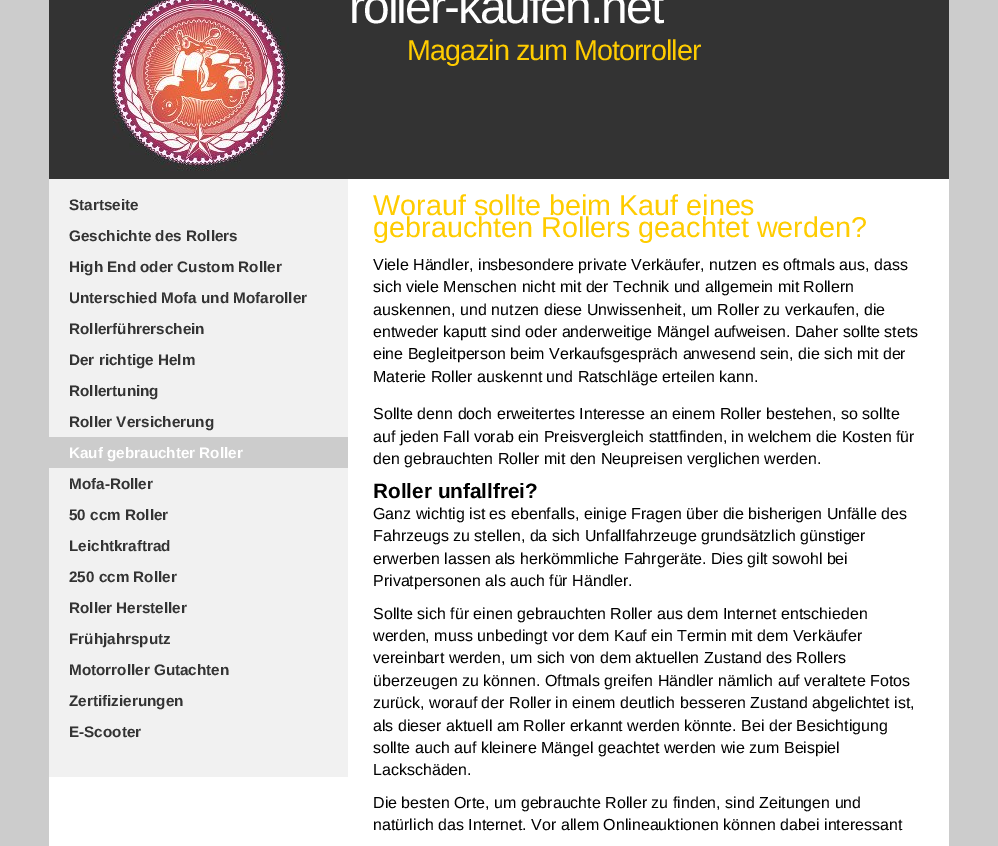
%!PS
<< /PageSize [998 846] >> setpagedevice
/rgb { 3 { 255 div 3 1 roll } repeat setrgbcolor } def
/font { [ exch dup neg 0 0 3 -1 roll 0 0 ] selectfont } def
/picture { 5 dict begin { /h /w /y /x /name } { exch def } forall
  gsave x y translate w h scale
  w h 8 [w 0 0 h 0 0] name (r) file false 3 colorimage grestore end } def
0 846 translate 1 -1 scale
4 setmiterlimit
204 204 204 rgb
0 0 998 846 rectfill
51 51 51 rgb
49 0 900 179 rectfill
(img/1.rgb) 112 0 177 171 picture
[
  [49 179 900 667 255 255 255]
  [49 179 299 598 241 241 241]
  [49 437 299 31 204 204 204]
] { aload pop rgb rectfill } forall
/LiberationSans-Regular 48 font
255 255 255 rgb
349 23 moveto -2 0 (roller-kaufen.net) ashow
/LiberationSans-Regular 28.75 font
255 204 0 rgb
407 60 moveto -1 0 (Magazin zum Motorroller) ashow
/LiberationSans-Bold 15.25 font
51 51 51 rgb
[
  [(Startseite) 69 210]
  [(Geschichte des Rollers) 69 241]
  [(High End oder Custom Roller) 69 272]
  [(Unterschied Mofa und Mofaroller) 69 303]
  [(Rollerführerschein) 69 334]
  [(Der richtige Helm) 69 365]
  [(Rollertuning) 69 396]
  [(Roller Versicherung) 69 427]
] { aload pop moveto show } forall
255 255 255 rgb
69 458 moveto (Kauf gebrauchter Roller) show
51 51 51 rgb
[
  [(Mofa-Roller) 69 489]
  [(50 ccm Roller) 69 520]
  [(Leichtkraftrad) 69 551]
  [(250 ccm Roller) 69 582]
  [(Roller Hersteller) 69 613]
  [(Frühjahrsputz) 69 644]
  [(Motorroller Gutachten) 69 675]
  [(Zertifizierungen) 69 706]
  [(E-Scooter) 69 737]
] { aload pop moveto show } forall
/LiberationSans-Regular 28.75 font
255 204 0 rgb
373 215 moveto (Worauf sollte beim Kauf eines) show
373 237 moveto (gebrauchten Rollers geachtet werden?) show
/LiberationSans-Regular 16 font
0 0 0 rgb
[
  [(Viele Händler, insbesondere private Verkäufer, nutzen es oftmals aus, dass) 373 270]
  [(sich viele Menschen nicht mit der Technik und allgemein mit Rollern) 373 292]
  [(auskennen, und nutzen diese Unwissenheit, um Roller zu verkaufen, die) 373 315]
  [(entweder kaputt sind oder anderweitige Mängel aufweisen. Daher sollte stets) 373 337]
  [(eine Begleitperson beim Verkaufsgespräch anwesend sein, die sich mit der) 373 359]
  [(Materie Roller auskennt und Ratschläge erteilen kann.) 373 382]
  [(Sollte denn doch erweitertes Interesse an einem Roller bestehen, so sollte) 373 419]
  [(auf jeden Fall vorab ein Preisvergleich stattfinden, in welchem die Kosten für) 373 442]
  [(den gebrauchten Roller mit den Neupreisen verglichen werden.) 373 464]
] { aload pop moveto show } forall
/LiberationSans-Bold 20.75 font
373 498 moveto (Roller unfallfrei?) show
/LiberationSans-Regular 16 font
[
  [(Ganz wichtig ist es ebenfalls, einige Fragen über die bisherigen Unfälle des) 373 519]
  [(Fahrzeugs zu stellen, da sich Unfallfahrzeuge grundsätzlich günstiger) 373 541]
  [(erwerben lassen als herkömmliche Fahrgeräte. Dies gilt sowohl bei) 373 564]
  [(Privatpersonen als auch für Händler.) 373 586]
  [(Sollte sich für einen gebrauchten Roller aus dem Internet entschieden) 373 619]
  [(werden, muss unbedingt vor dem Kauf ein Termin mit dem Verkäufer) 373 641]
  [(vereinbart werden, um sich von dem aktuellen Zustand des Rollers) 373 663]
  [(überzeugen zu können. Oftmals greifen Händler nämlich auf veraltete Fotos) 373 686]
  [(zurück, worauf der Roller in einem deutlich besseren Zustand abgelichtet ist,) 373 708]
  [(als dieser aktuell am Roller erkannt werden könnte. Bei der Besichtigung) 373 731]
  [(sollte auch auf kleinere Mängel geachtet werden wie zum Beispiel) 373 753]
  [(Lackschäden.) 373 775]
  [(Die besten Orte, um gebrauchte Roller zu finden, sind Zeitungen und) 373 808]
  [(natürlich das Internet. Vor allem Onlineauktionen können dabei interessant) 373 830]
] { aload pop moveto show } forall
showpage
